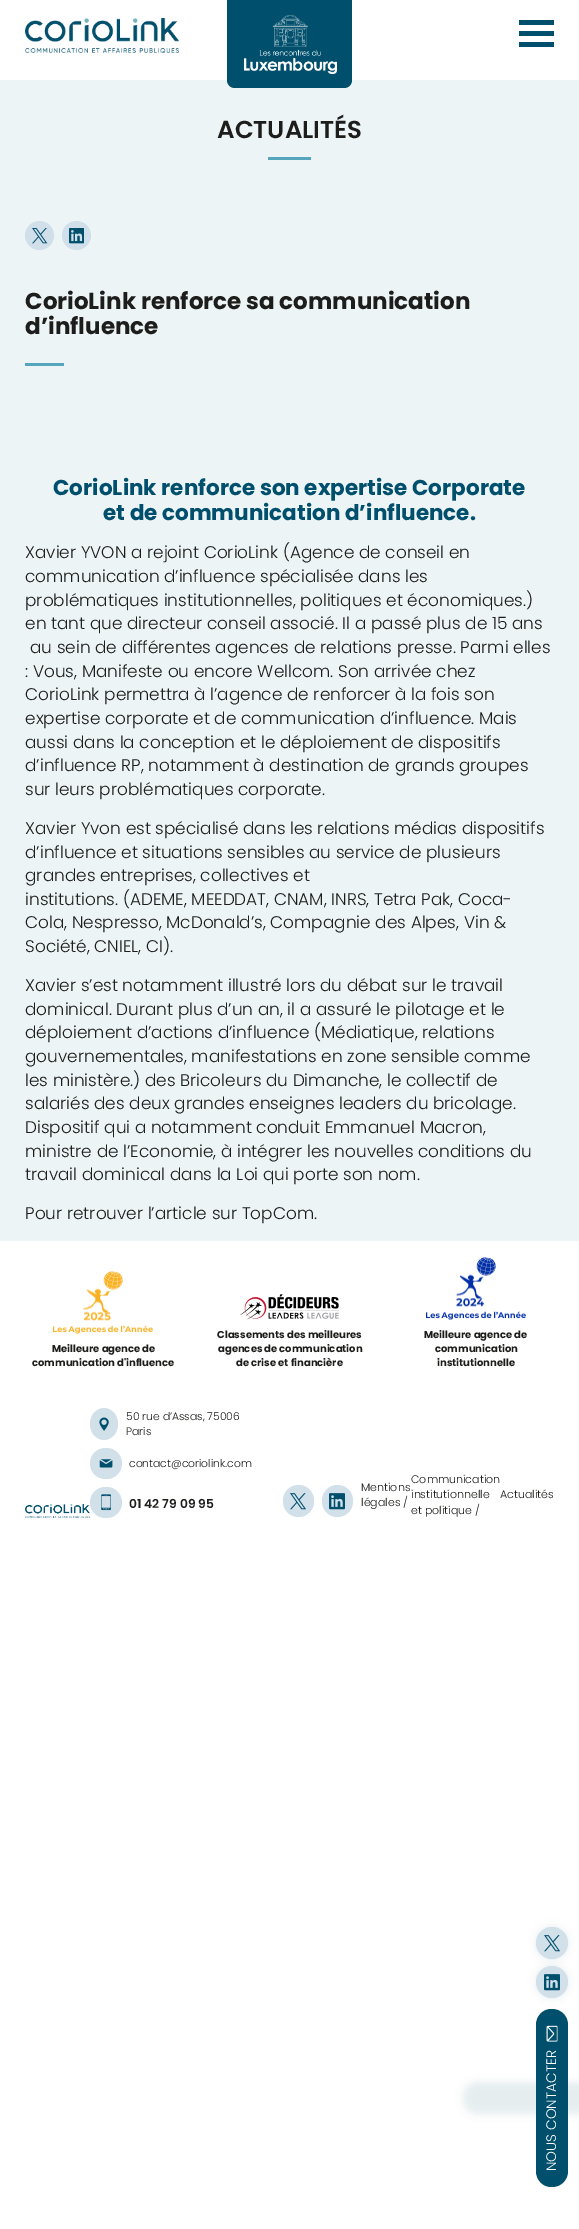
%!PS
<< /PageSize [579 2229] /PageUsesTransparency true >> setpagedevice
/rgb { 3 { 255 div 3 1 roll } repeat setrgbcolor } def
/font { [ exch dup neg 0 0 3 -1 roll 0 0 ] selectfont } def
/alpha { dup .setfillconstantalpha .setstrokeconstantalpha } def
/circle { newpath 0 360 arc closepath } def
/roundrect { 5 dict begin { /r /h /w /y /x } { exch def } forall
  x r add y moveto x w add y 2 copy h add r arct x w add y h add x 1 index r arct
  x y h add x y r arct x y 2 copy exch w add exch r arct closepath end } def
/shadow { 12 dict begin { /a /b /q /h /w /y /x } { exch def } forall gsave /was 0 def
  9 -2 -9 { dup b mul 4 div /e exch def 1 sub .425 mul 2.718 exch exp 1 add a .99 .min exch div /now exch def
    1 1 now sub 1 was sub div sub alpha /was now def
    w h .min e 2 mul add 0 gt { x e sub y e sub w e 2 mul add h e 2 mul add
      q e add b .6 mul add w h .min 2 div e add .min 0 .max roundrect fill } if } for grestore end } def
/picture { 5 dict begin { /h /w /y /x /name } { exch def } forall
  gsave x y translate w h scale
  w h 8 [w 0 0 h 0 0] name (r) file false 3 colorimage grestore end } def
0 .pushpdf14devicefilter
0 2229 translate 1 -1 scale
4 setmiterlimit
255 255 255 rgb
0 0 579 2229 rectfill
236 244 246 rgb
0 80 579 1161 rectfill
0 79 108 rgb
227 0 moveto 352 0 lineto 352 80 lineto 352 84.5 348.5 88 344 88 curveto 235 88 lineto 230.5 88 227 84.5 227 80 curveto closepath fill
(img/1.rgb) 244 15 93 59 picture
(img/2.rgb) 25 18 154 35 picture
[
  [519 20 35 5 0 79 108]
  [519 31 35 5 0 79 108]
  [519 42 35 5 0 79 108]
  [268 157 43 3 85 166 189]
] { aload pop rgb rectfill } forall
209 223 234 rgb
39.5 235.5 14.5 circle fill
(img/3.rgb) 32 228 16 16 picture
76.5 235.5 14.5 circle fill
(img/4.rgb) 69 228 15 16 picture
85 166 189 rgb
25 363 39 3 rectfill
(img/5.rgb) 53 1271 100 63 picture
(img/6.rgb) 240 1294 99 26 picture
(img/7.rgb) 426 1257 100 63 picture
(img/8.rgb) 25 1504 65 14 picture
209 224 233 rgb
104 1408 moveto 111.5 1408 118 1415 118 1424 curveto 118 1433 111.5 1440 104 1440 curveto 96.5 1440 90 1433 90 1424 curveto 90 1415 96.5 1408 104 1408 curveto closepath fill
(img/9.rgb) 99 1417 10 14 picture
90 1448 32 31 15.5 roundrect fill
(img/10.rgb) 99 1459 14 9 picture
90 1487 32 31 15.5 roundrect fill
(img/11.rgb) 101 1494 10 17 picture
283 1485 31 32 15.5 roundrect fill
(img/12.rgb) 290 1493 16 17 picture
322 1485 31 32 15.5 roundrect fill
(img/13.rgb) 329 1493 16 17 picture
0 79 108 rgb
536 1927 32 32 16 4 0.1 shadow
209 224 233 rgb
552 1943 16 circle fill
(img/12.rgb) 544 1935 16 17 picture
0 79 108 rgb
536 1966 32 32 16 4 0.1 shadow
209 224 233 rgb
552 1982 16 circle fill
(img/13.rgb) 544 1974 16 17 picture
0 79 108 rgb
463 2082 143 32 15 4 0.1 shadow
536 2171 moveto 536 2025 lineto 536 2016 543 2009 551 2009 curveto 552 2009 lineto 561 2009 568 2016 568 2025 curveto 568 2171 lineto 568 2180 561 2187 552 2187 curveto 551 2187 lineto 543 2187 536 2180 536 2171 curveto closepath fill
(img/14.rgb) 546 2025 12 17 picture
/Poppins-SemiBold 24.5 font
29 29 27 rgb
217 138 moveto (ACTUALITÉS) show
/Poppins-Bold 23 font
25 309 moveto (CorioLink renforce sa communication) show
25 334 moveto (d’influence) show
/Poppins-Bold 21.5 font
0 79 108 rgb
53 495 moveto (CorioLink renforce son expertise Corporate) show
103 520 moveto (et de communication d’influence.) show
/Poppins-Light 16.9 font
29 29 27 rgb
[
  [(Xavier YVON a rejoint CorioLink \(Agence de conseil en) 25 558]
  [(communication d’influence spécialisée dans les) 25 582]
  [(problématiques institutionnelles, politiques et économiques.\)) 25 606]
  [(en tant que directeur conseil associé. Il a passé plus de 15 ans) 25 629]
  [(au sein de différentes agences de relations presse. Parmi elles) 30 653]
  [(: Vous, Manifeste ou encore Wellcom. Son arrivée chez) 25 677]
  [(CorioLink permettra à l’agence de renforcer à la fois son) 25 700]
  [(expertise corporate et de communication d’influence. Mais) 25 724]
  [(aussi dans la conception et le déploiement de dispositifs) 25 748]
  [(d’influence RP, notamment à destination de grands groupes) 25 771]
  [(sur leurs problématiques corporate.) 25 795]
  [(Xavier Yvon est spécialisé dans les relations médias dispositifs) 25 834]
  [(d’influence et situations sensibles au service de plusieurs) 25 858]
  [(grandes entreprises, collectives et) 25 881]
  [(institutions. \(ADEME, MEEDDAT, CNAM, INRS, Tetra Pak, Coca-) 25 905]
  [(Cola, Nespresso, McDonald’s, Compagnie des Alpes, Vin &) 25 928]
  [(Société, CNIEL, CI\).) 25 952]
  [(Xavier s’est notamment illustré lors du débat sur le travail) 25 991]
  [(dominical. Durant plus d’un an, il a assuré le pilotage et le) 25 1015]
  [(déploiement d’actions d’influence \(Médiatique, relations) 25 1038]
  [(gouvernementales, manifestations en zone sensible comme) 25 1062]
  [(les ministère.\) des Bricoleurs du Dimanche, le collectif de) 25 1086]
  [(salariés des deux grandes enseignes leaders du bricolage.) 25 1109]
  [(Dispositif qui a notamment conduit Emmanuel Macron,) 25 1133]
  [(ministre de l’Economie, à intégrer les nouvelles conditions du) 25 1157]
  [(travail dominical dans la Loi qui porte son nom.) 25 1180]
  [(Pour retrouver l’article sur TopCom.) 25 1219]
] { aload pop moveto show } forall
/Poppins-Bold 10 font
[
  [(Meilleure agence de) 52 1352]
  [(communication d'influence) 32 1366]
  [(Classements des meilleures) 217 1338]
  [(agences de communication) 218 1352]
  [(de crise et financière) 236 1366]
  [(Meilleure agence de) 424 1338]
  [(communication) 435 1352]
  [(institutionnelle) 437 1366]
] { aload pop moveto show } forall
/Poppins-Light 10.75 font
[
  [(50 rue d’Assas, 75006) 126 1420]
  [(Paris) 126 1435]
  [(contact@coriolink.com) 129 1467]
] { aload pop moveto show } forall
/Poppins-SemiBold 12.25 font
129 1508 moveto (01 42 79 09 95) show
/Poppins-Light 11 font
[
  [(Mentions) 361 1491]
  [(légales /) 361 1506]
  [(Communication) 411 1483]
  [(institutionnelle) 411 1498]
  [(et politique /) 411 1514]
  [(Actualités) 500 1498]
] { aload pop moveto show } forall
/Poppins-Light 13.75 font
255 255 255 rgb
gsave 556 2171 translate -90 rotate 0 0 moveto (NOUS CONTACTER) show grestore
.poppdf14devicefilter showpage
